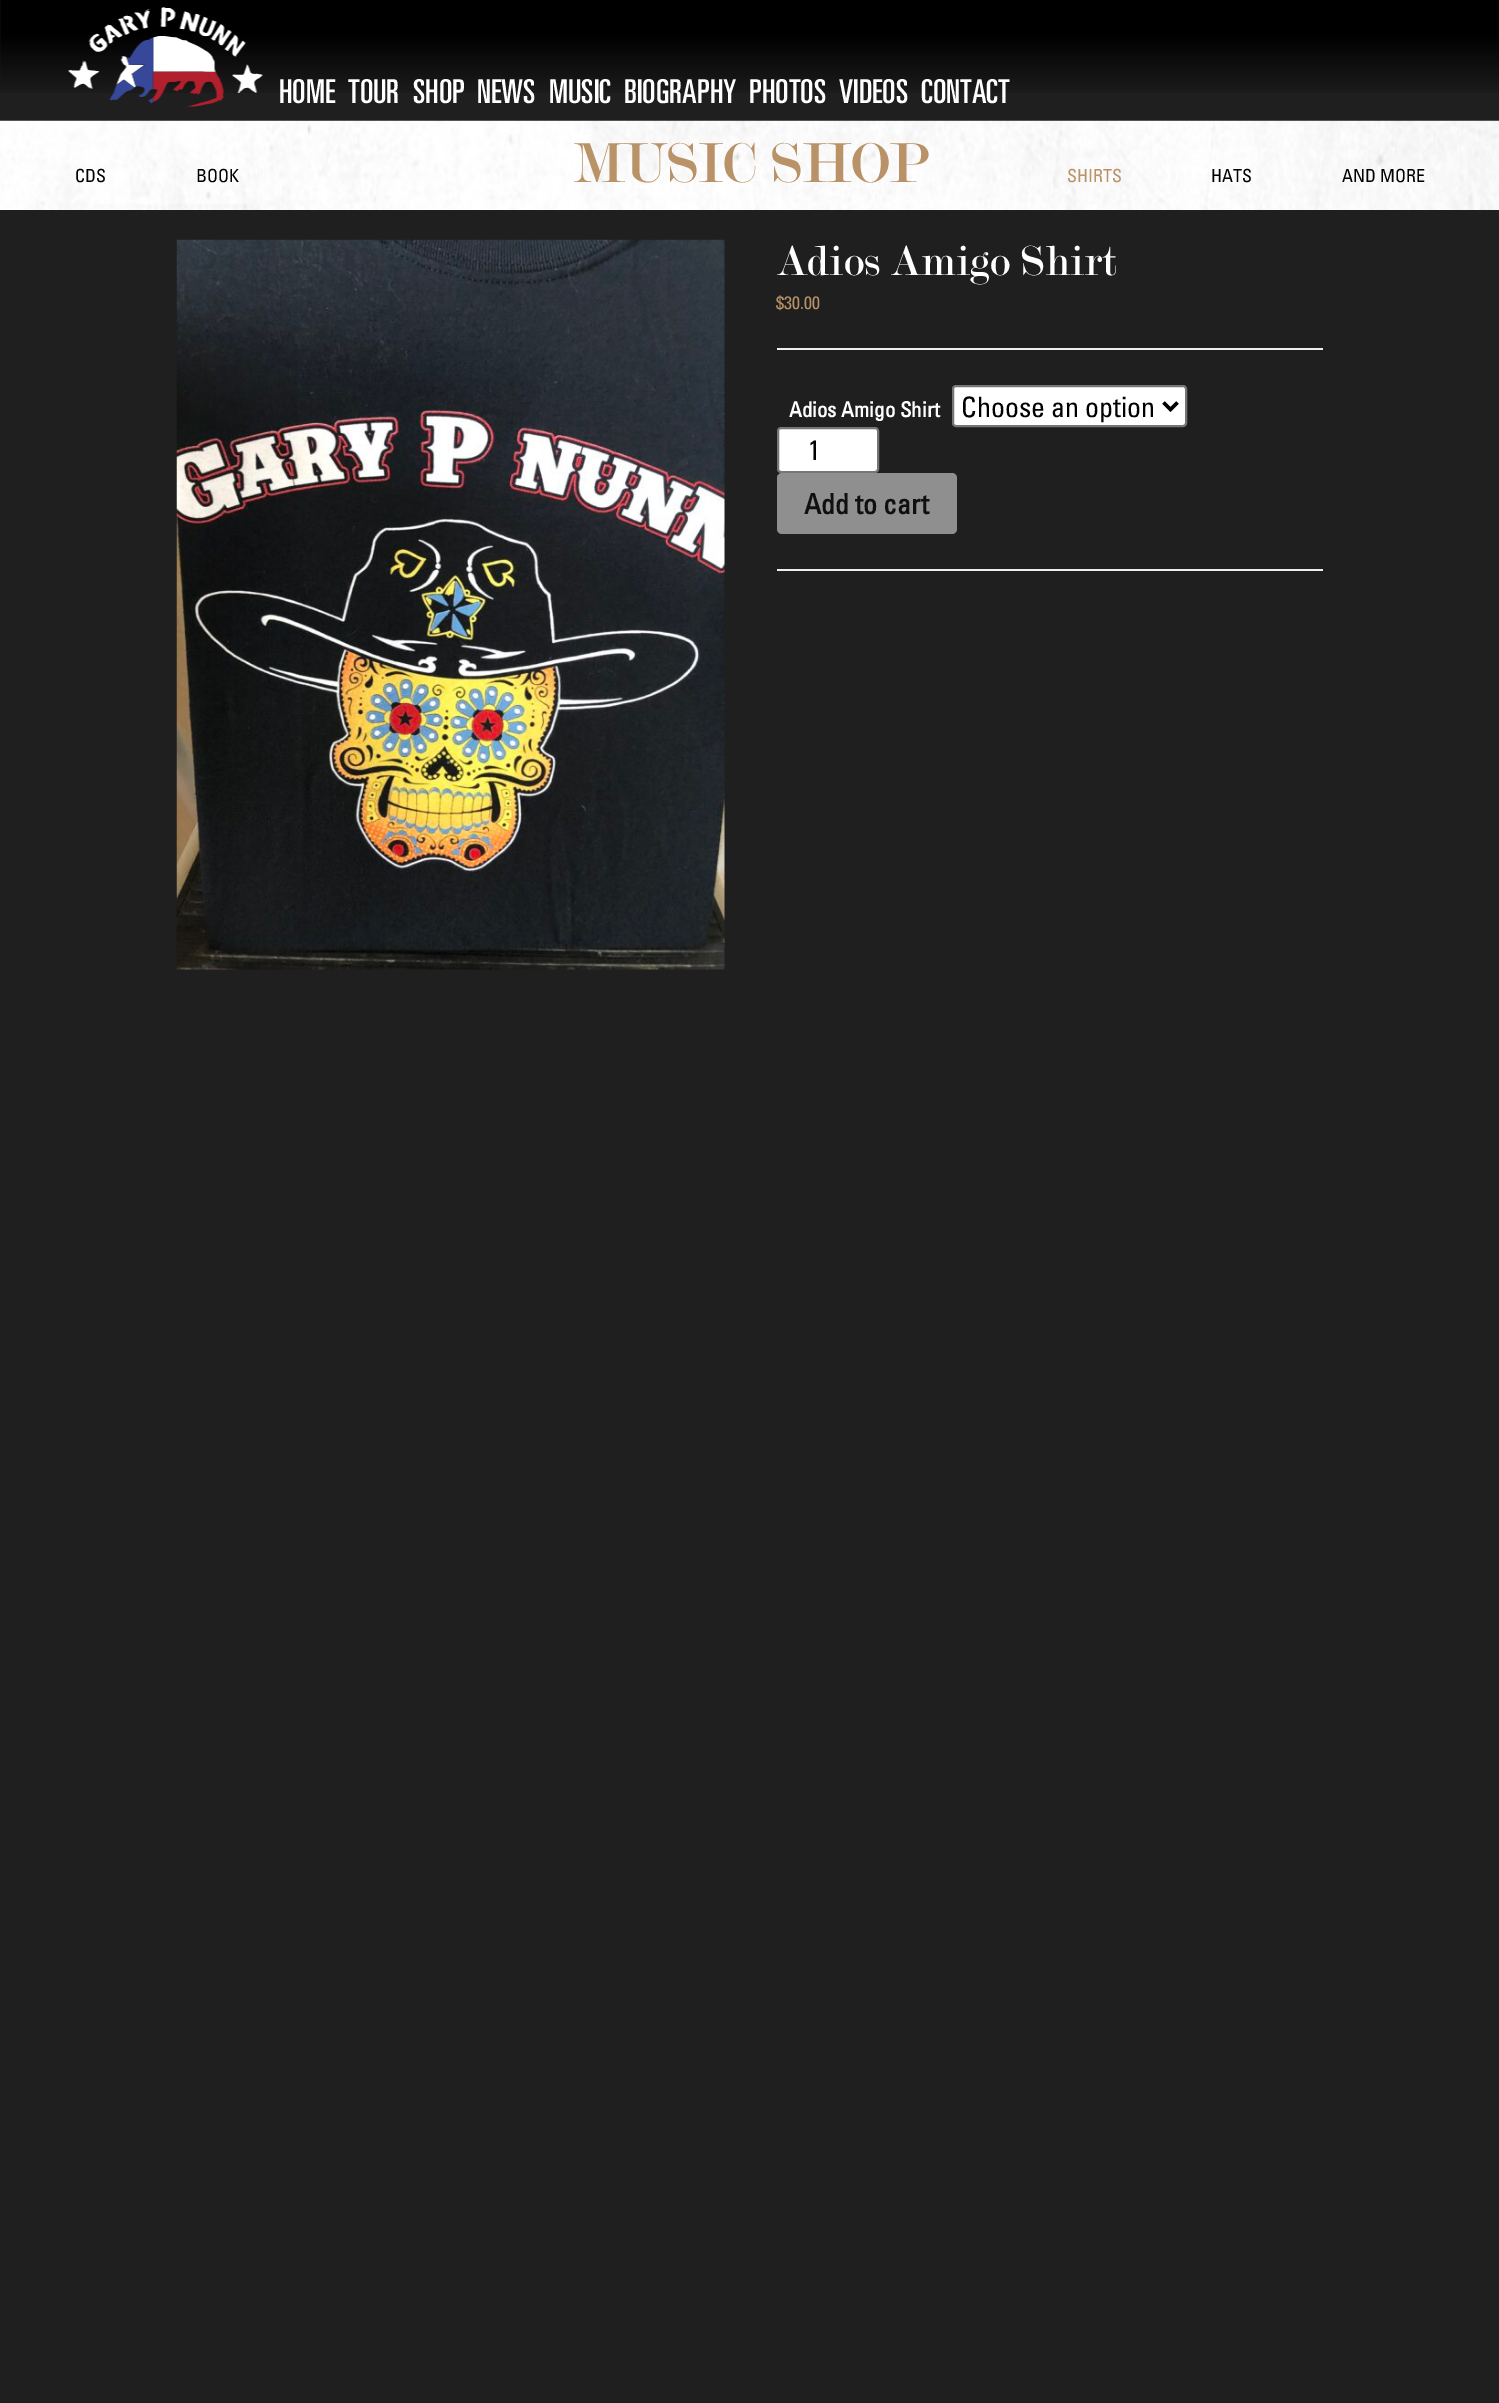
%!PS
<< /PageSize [1499 2403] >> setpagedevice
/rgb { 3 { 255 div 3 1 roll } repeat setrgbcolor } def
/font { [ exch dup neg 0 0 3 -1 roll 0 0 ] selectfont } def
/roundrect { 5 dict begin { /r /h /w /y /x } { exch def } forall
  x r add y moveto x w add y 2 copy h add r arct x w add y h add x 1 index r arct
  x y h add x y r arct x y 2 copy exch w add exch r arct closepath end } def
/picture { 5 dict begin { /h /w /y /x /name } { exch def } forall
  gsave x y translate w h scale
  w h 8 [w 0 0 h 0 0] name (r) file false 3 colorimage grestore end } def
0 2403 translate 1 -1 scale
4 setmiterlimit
31 31 31 rgb
0 0 1499 2403 rectfill
(img/1.rgb) 0 0 1499 93 picture
(img/2.rgb) 68 7 195 100 picture
(img/3.rgb) 0 120 1499 90 picture
(img/4.rgb) 176 239 549 731 picture
238 238 238 rgb
777 348 546 2 rectfill
255 255 255 rgb
953 386 233 40 3 roundrect gsave fill grestore
118 118 118 rgb
2 setlinewidth
stroke
0 0 0 rgb
3.5 setlinewidth
1163.5 402.5 moveto 1170.5 409.5 lineto 1177.5 402.5 lineto stroke
255 255 255 rgb
778 428 100 44 3 roundrect gsave fill grestore
118 118 118 rgb
2 setlinewidth
stroke
143 143 143 rgb
777 473 180 61 5 roundrect fill
238 238 238 rgb
777 569 546 2 rectfill
/Univers-Regular 33 font
255 255 255 rgb
[
  [(HOME) 279 103]
  [(TOUR) 348 103]
  [(SHOP) 413 103]
  [(NEWS) 477 103]
  [(MUSIC) 549 103]
  [(BIOGRAPHY) 624 103]
  [(PHOTOS) 749 103]
  [(VIDEOS) 839 103]
  [(CONTACT) 921 103]
] { aload pop moveto show } forall
/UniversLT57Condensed-Regular 18 font
0 0 0 rgb
75 182 moveto (CDS) show
196 182 moveto (BOOK) show
/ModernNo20-Regular 60 font
186 146 103 rgb
573 182 moveto (MUSIC SHOP) show
/UniversLT57Condensed-Regular 18 font
1067 182 moveto (SHIRTS) show
0 0 0 rgb
1211 182 moveto (HATS) show
1342 182 moveto (AND MORE) show
/ModernNo20-Regular 45 font
255 255 255 rgb
776 275 moveto (Adios Amigo Shirt) show
/UniversLT57Condensed-Regular 18 font
186 146 103 rgb
776 309 moveto ($30.00) show
/UniversLT57Condensed-Bold 21 font
255 255 255 rgb
789 417 moveto (Adios Amigo Shirt) show
/UniversLT57Condensed-Regular 28 font
0 0 0 rgb
961 417 moveto (Choose an option) show
808 460 moveto (1) show
/UniversLT57Condensed-Bold 28 font
16 16 16 rgb
804 514 moveto (Add to cart) show
showpage
